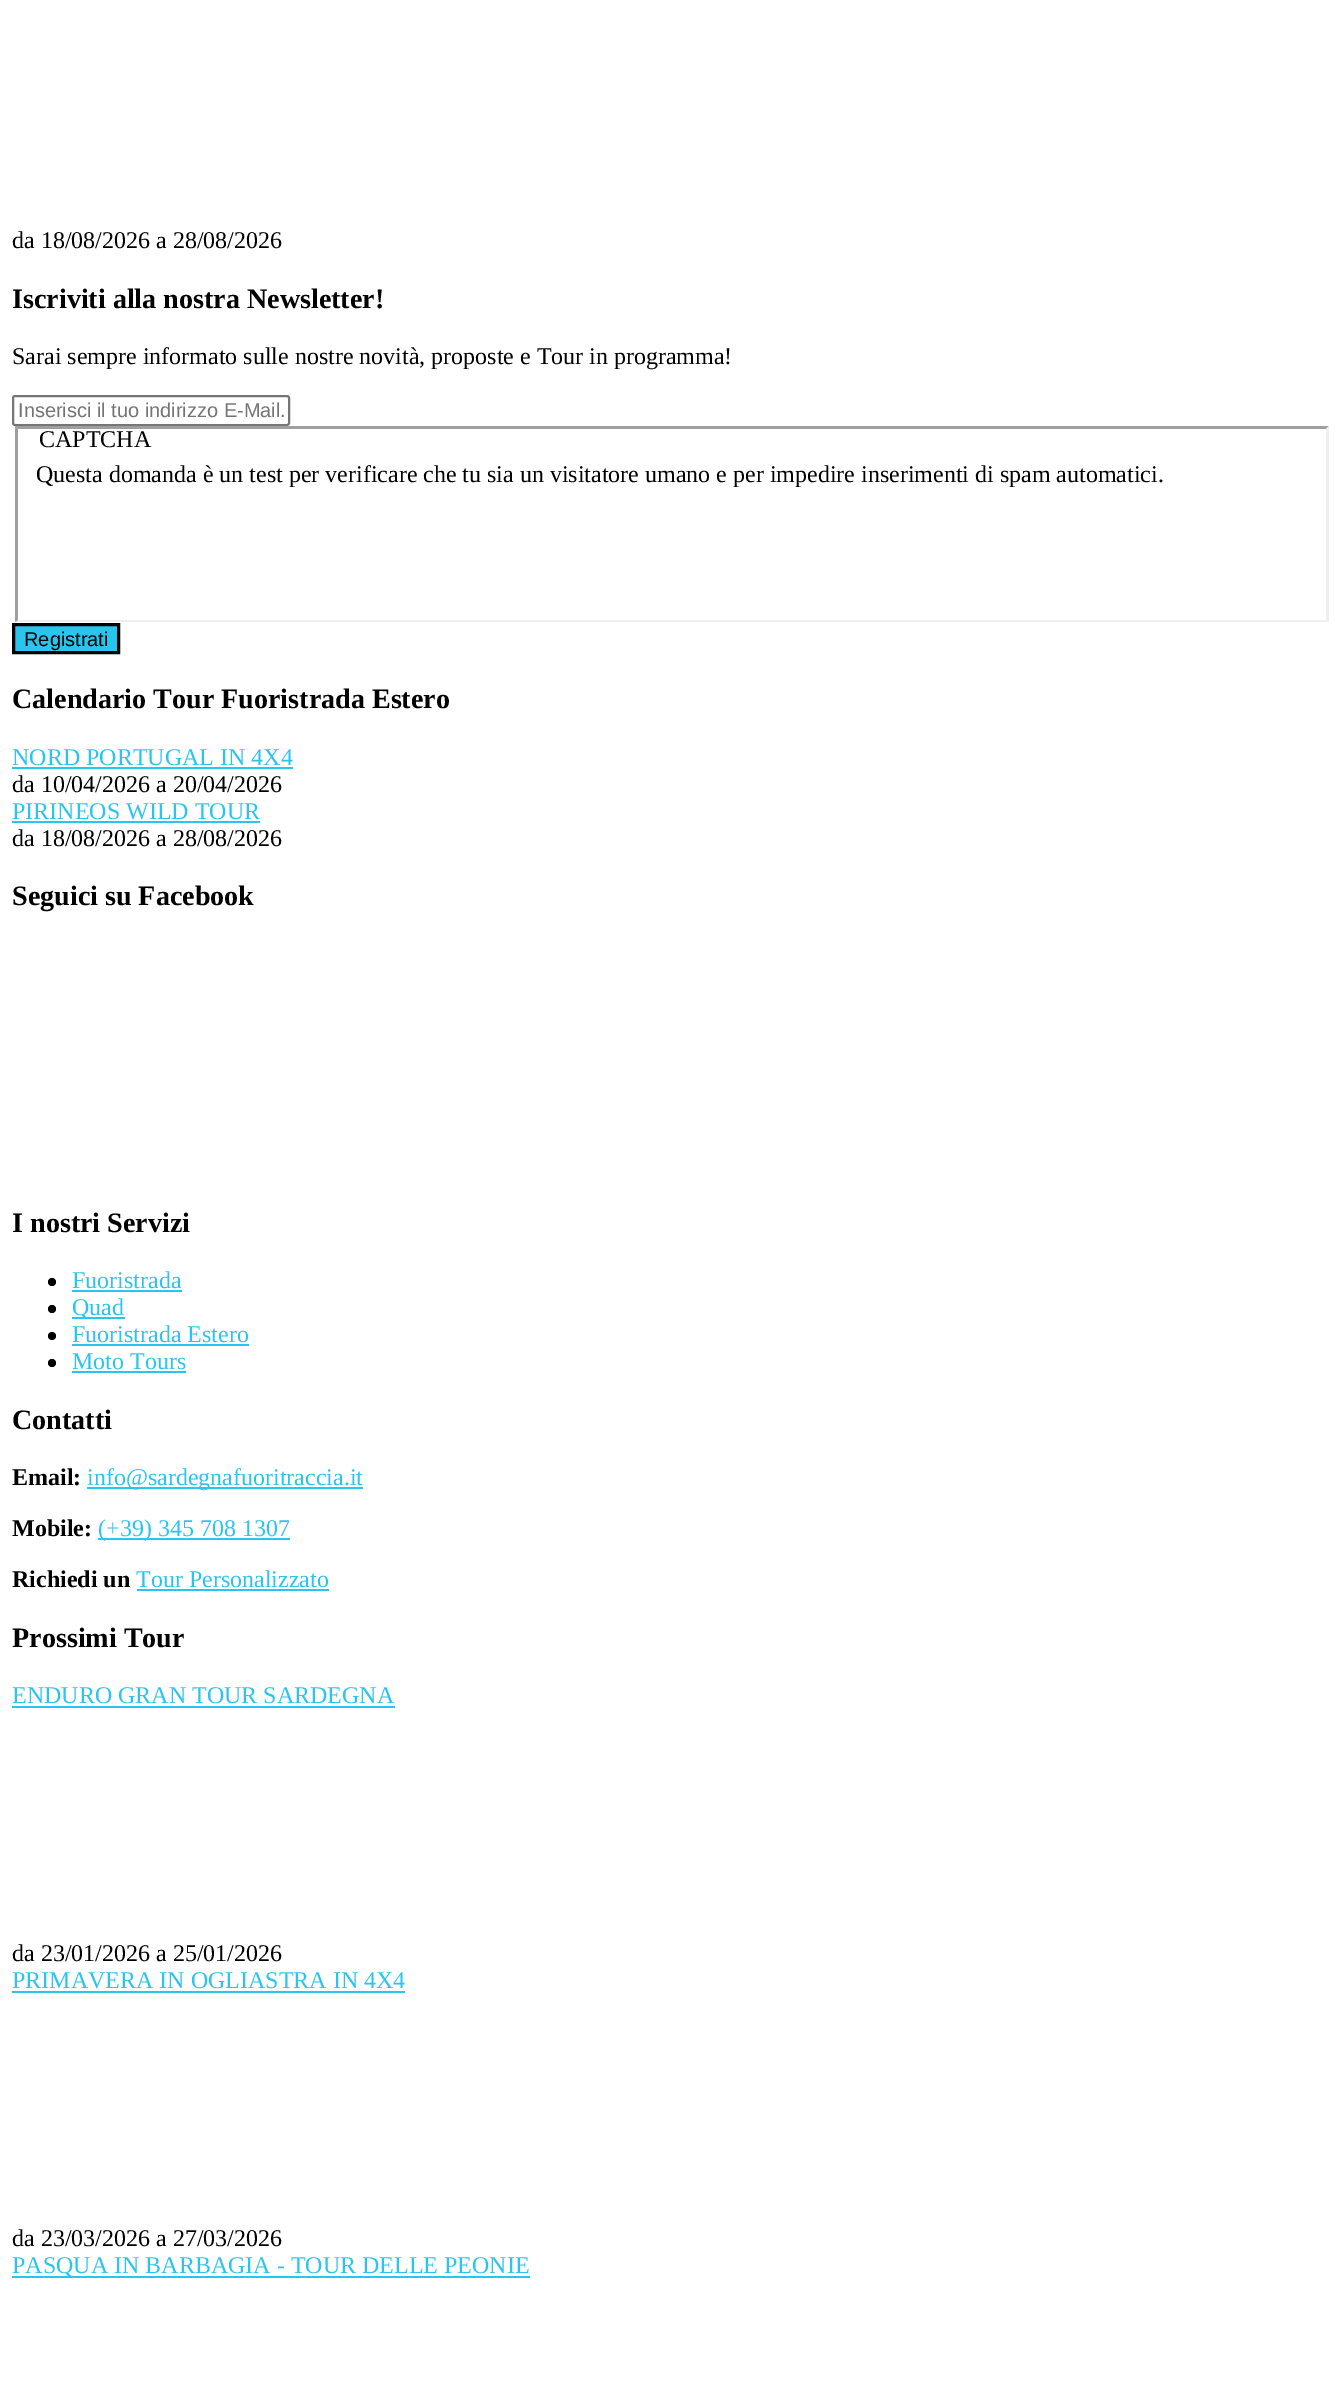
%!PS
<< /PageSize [1343 2407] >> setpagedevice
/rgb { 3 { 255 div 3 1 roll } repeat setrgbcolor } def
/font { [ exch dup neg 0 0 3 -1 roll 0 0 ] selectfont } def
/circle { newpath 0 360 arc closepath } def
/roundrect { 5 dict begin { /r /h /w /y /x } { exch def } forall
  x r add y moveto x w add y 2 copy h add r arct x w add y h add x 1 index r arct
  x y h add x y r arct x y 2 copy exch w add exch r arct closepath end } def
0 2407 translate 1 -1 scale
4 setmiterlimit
255 255 255 rgb
0 0 1343 2407 rectfill
118 118 118 rgb
2 setlinewidth
13 396 276 29 2 roundrect stroke
159 159 159 rgb
15 426 moveto 1329 426 lineto 1326 429 lineto 18 429 lineto closepath fill
239 239 239 rgb
1329 426 moveto 1329 622 lineto 1326 620 lineto 1326 429 lineto closepath fill
1329 622 moveto 15 622 lineto 18 620 lineto 1326 620 lineto closepath fill
159 159 159 rgb
15 622 moveto 15 426 lineto 18 429 lineto 18 620 lineto closepath fill
42 197 238 rgb
13.5 624.5 moveto 118.5 624.5 lineto 118.5 652.5 lineto 13.5 652.5 lineto closepath gsave fill grestore
0 0 0 rgb
3 setlinewidth
stroke
42 197 238 rgb
12 767 281 2 rectfill
12 821 248 2 rectfill
0 0 0 rgb
52 1282 4 circle fill
42 197 238 rgb
72 1290 110 2 rectfill
0 0 0 rgb
52 1309 4 circle fill
42 197 238 rgb
72 1317 53 2 rectfill
0 0 0 rgb
52 1336 4 circle fill
42 197 238 rgb
72 1344 177 2 rectfill
0 0 0 rgb
52 1363 4 circle fill
[
  [72 1371 114 2 42 197 238]
  [87 1487 276 2 42 197 238]
  [98 1538 192 2 42 197 238]
  [137 1589 192 2 42 197 238]
  [12 1706 383 2 42 197 238]
  [12 1991 393 2 42 197 238]
  [12 2276 518 2 42 197 238]
] { aload pop rgb rectfill } forall
/LiberationSerif-Regular 24 font
0 0 0 rgb
12 248 moveto (da 18/08/2026 a 28/08/2026) show
/LiberationSerif-Bold 28.1 font
12 308 moveto (Iscriviti alla nostra Newsletter!) show
/LiberationSerif-Regular 24 font
12 364 moveto (Sarai sempre informato sulle nostre novità, proposte e Tour in programma!) show
/LiberationSans-Regular 20 font
117 117 117 rgb
18 417 moveto (Inserisci il tuo indirizzo E-Mail.) show
/LiberationSerif-Regular 24 font
0 0 0 rgb
39 447 moveto (CAPTCHA) show
36 482 moveto (Questa domanda è un test per verificare che tu sia un visitatore umano e per impedire inserimenti di spam automatici.) show
/LiberationSans-Regular 20 font
24 646 moveto (Registrati) show
/LiberationSerif-Bold 28.1 font
12 708 moveto (Calendario Tour Fuoristrada Estero) show
/LiberationSerif-Regular 24 font
42 197 238 rgb
12 765 moveto (NORD PORTUGAL IN 4X4) show
0 0 0 rgb
12 792 moveto (da 10/04/2026 a 20/04/2026) show
42 197 238 rgb
12 819 moveto (PIRINEOS WILD TOUR) show
0 0 0 rgb
12 846 moveto (da 18/08/2026 a 28/08/2026) show
/LiberationSerif-Bold 28.1 font
12 905 moveto (Seguici su Facebook) show
12 1232 moveto (I nostri Servizi) show
/LiberationSerif-Regular 24 font
42 197 238 rgb
[
  [(Fuoristrada) 72 1288]
  [(Quad) 72 1315]
  [(Fuoristrada Estero) 72 1342]
  [(Moto Tours) 72 1369]
] { aload pop moveto show } forall
/LiberationSerif-Bold 28.1 font
0 0 0 rgb
12 1429 moveto (Contatti) show
/LiberationSerif-Bold 24 font
12 1485 moveto (Email:) show
/LiberationSerif-Regular 24 font
42 197 238 rgb
87 1485 moveto (info@sardegnafuoritraccia.it) show
/LiberationSerif-Bold 24 font
0 0 0 rgb
12 1536 moveto (Mobile:) show
/LiberationSerif-Regular 24 font
42 197 238 rgb
98 1536 moveto (\(+39\) 345 708 1307) show
/LiberationSerif-Bold 24 font
0 0 0 rgb
12 1587 moveto (Richiedi un) show
/LiberationSerif-Regular 24 font
42 197 238 rgb
136 1587 moveto (Tour Personalizzato) show
/LiberationSerif-Bold 28.1 font
0 0 0 rgb
12 1647 moveto (Prossimi Tour) show
/LiberationSerif-Regular 24 font
42 197 238 rgb
12 1703 moveto (ENDURO GRAN TOUR SARDEGNA) show
0 0 0 rgb
12 1961 moveto (da 23/01/2026 a 25/01/2026) show
42 197 238 rgb
12 1988 moveto (PRIMAVERA IN OGLIASTRA IN 4X4) show
0 0 0 rgb
12 2246 moveto (da 23/03/2026 a 27/03/2026) show
42 197 238 rgb
12 2273 moveto (PASQUA IN BARBAGIA - TOUR DELLE PEONIE) show
showpage
